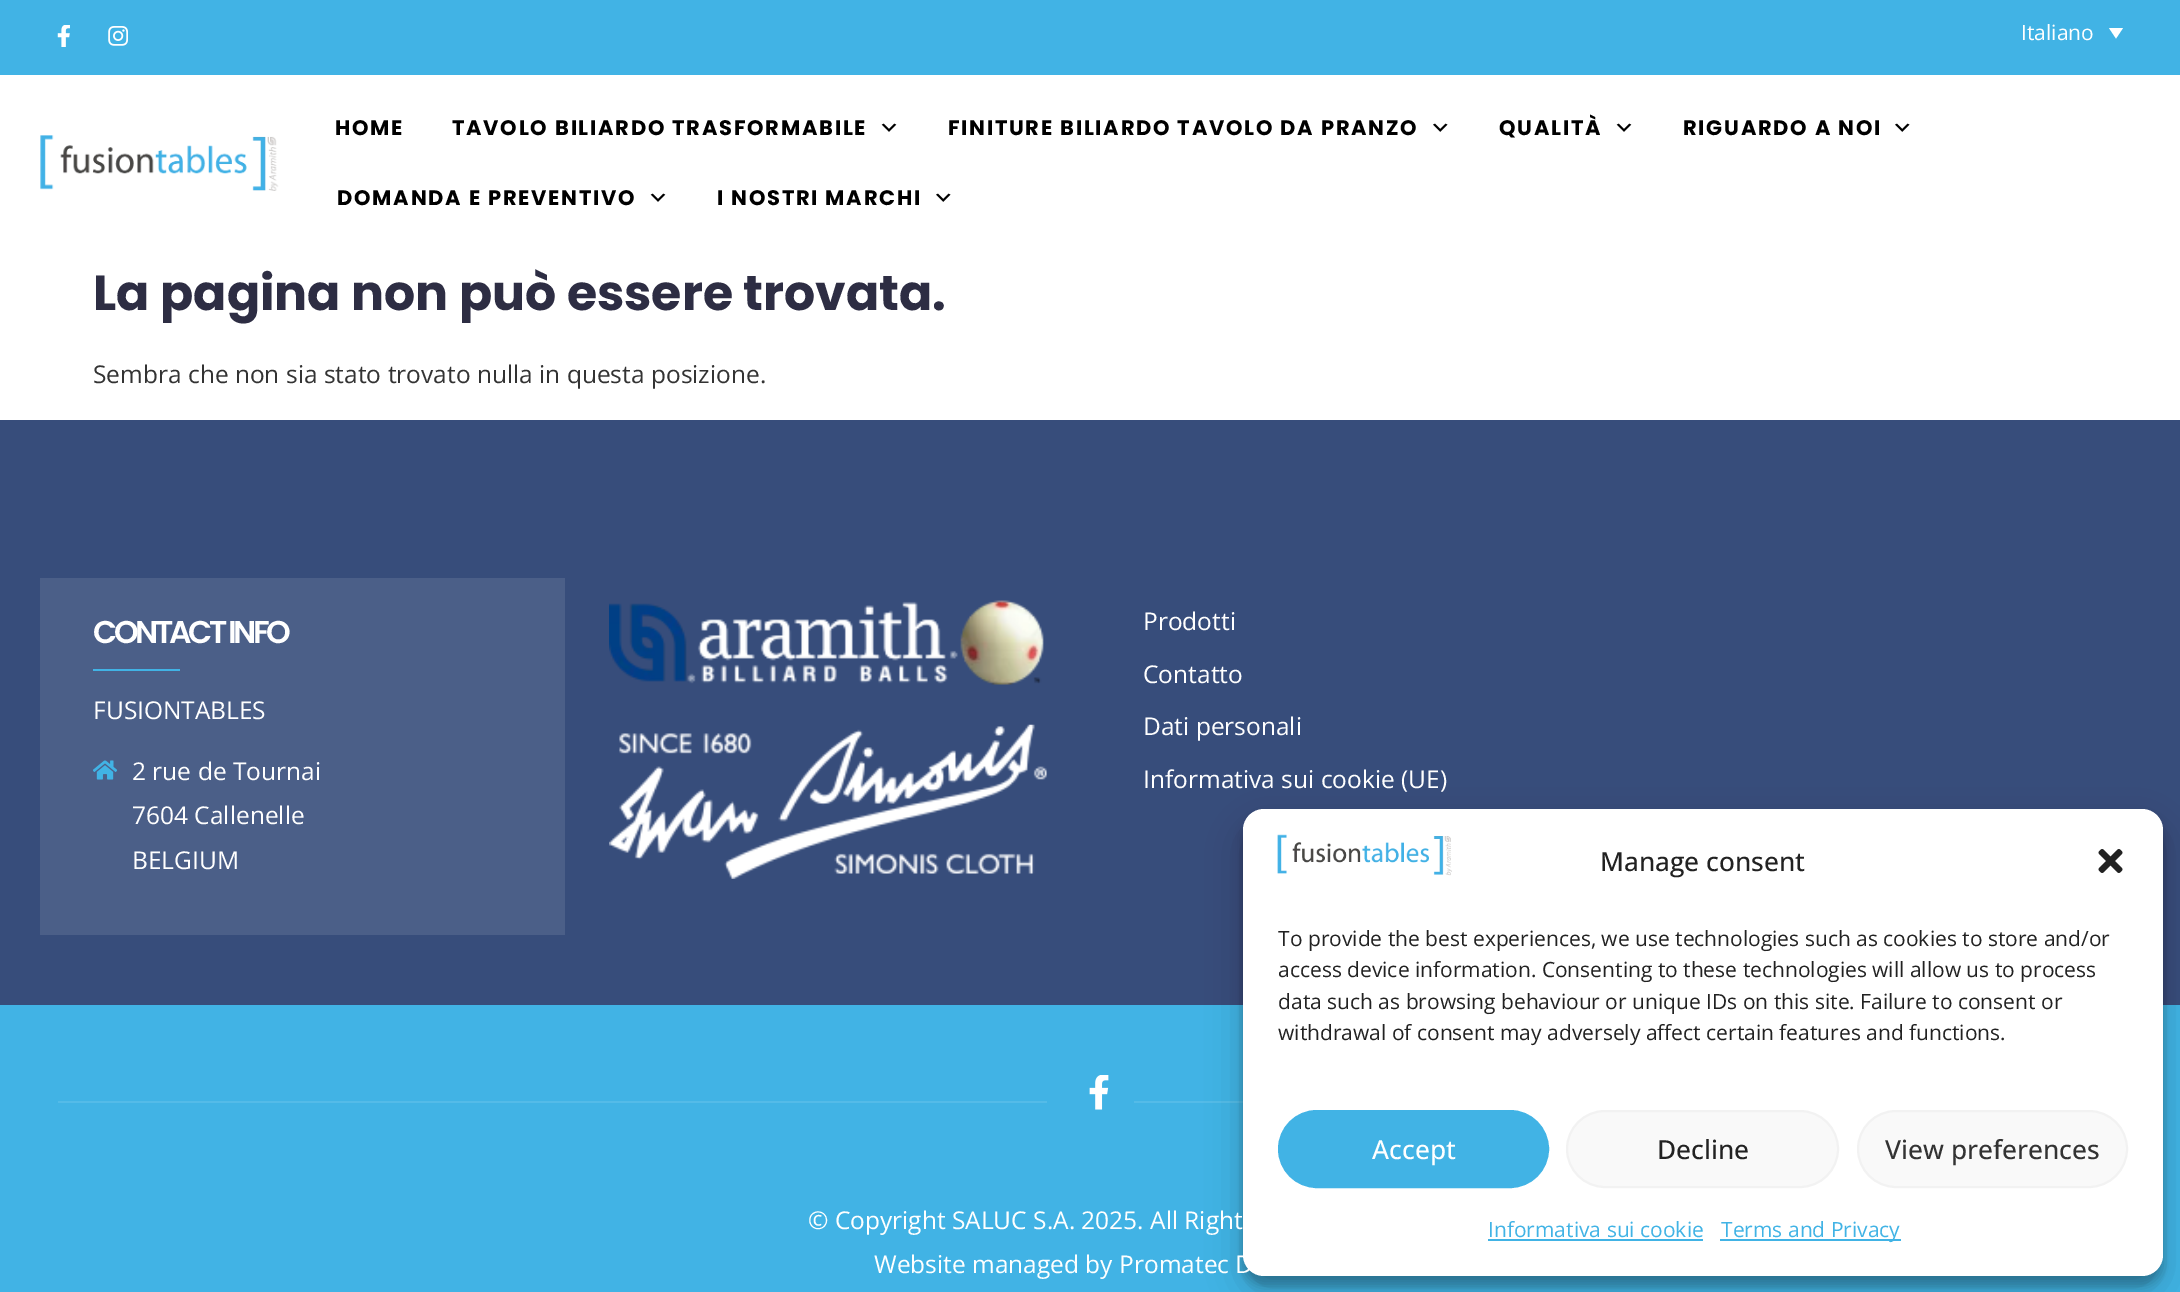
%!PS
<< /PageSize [2180 1292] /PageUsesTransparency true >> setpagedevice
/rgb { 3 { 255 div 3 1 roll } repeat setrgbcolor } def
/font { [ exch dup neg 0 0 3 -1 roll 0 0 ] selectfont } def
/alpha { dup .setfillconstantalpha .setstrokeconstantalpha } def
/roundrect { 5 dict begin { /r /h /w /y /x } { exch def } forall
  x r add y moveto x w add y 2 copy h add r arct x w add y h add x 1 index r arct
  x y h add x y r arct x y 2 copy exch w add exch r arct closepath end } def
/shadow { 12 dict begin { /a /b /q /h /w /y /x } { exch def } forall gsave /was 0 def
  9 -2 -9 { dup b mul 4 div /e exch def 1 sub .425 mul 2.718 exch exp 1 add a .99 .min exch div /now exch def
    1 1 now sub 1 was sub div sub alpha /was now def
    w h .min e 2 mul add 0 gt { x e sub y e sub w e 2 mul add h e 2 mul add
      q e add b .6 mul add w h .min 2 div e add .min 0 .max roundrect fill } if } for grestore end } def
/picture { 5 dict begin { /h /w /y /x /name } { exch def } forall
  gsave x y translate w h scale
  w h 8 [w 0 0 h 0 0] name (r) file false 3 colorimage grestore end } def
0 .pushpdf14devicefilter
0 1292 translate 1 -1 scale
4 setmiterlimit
255 255 255 rgb
0 0 2180 1292 rectfill
65 179 229 rgb
0 0 2180 75 rectfill
(img/1.rgb) 57 25 13 22 picture
(img/2.rgb) 108 26 20 20 picture
255 255 255 rgb
2109 28 moveto 2123 28 lineto 2116 38.5 lineto closepath fill
(img/3.rgb) 40 135 239 56 picture
(img/4.rgb) 881 123 16 9 picture
(img/5.rgb) 1433 123 15 9 picture
(img/4.rgb) 1616 123 16 9 picture
(img/5.rgb) 1895 123 15 9 picture
(img/4.rgb) 650 193 16 9 picture
(img/5.rgb) 936 193 15 9 picture
[
  [0 420 2180 585 55 77 123]
  [40 578 525 357 75 95 136]
  [93 669 87 2 65 179 229]
] { aload pop rgb rectfill } forall
(img/6.rgb) 93 760 24 20 picture
(img/7.rgb) 609 600 435 85 picture
(img/8.rgb) 609 724 438 155 picture
0 1005 2180 287 rectfill
84 187 232 rgb
58 1101 989 2 rectfill
(img/9.rgb) 1089 1075 20 35 picture
1134 1101 109 2 rectfill
0 0 0 rgb
1243 819 920 467 21 5 0.23 shadow
1243 826 920 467 21 17.5 0.19 shadow
255 255 255 rgb
1243 809 920 467 21 roundrect fill
(img/10.rgb) 1277 834 175 42 picture
(img/11.rgb) 2098 849 25 24 picture
65 179 229 rgb
1279 1111 269 76 38 roundrect gsave fill grestore
2 setlinewidth
stroke
249 249 249 rgb
1567 1111 271 76 38 roundrect gsave fill grestore
242 242 242 rgb
stroke
249 249 249 rgb
1858 1111 269 76 38 roundrect gsave fill grestore
242 242 242 rgb
stroke
65 179 229 rgb
1488 1239 215 2 rectfill
1720 1239 181 2 rectfill
/OpenSans-Regular 21 font
255 255 255 rgb
2021 40 moveto (Italiano) show
/Poppins-Bold 21 font
0 0 0 rgb
335 135 moveto 1.75 0 (HOME) ashow
452 135 moveto 1.75 0 (TAVOLO BILIARDO TRASFORMABILE) ashow
948 135 moveto 1.75 0 (FINITURE BILIARDO TAVOLO DA PRANZO) ashow
1499 135 moveto 1.75 0 (QUALITÀ) ashow
1683 135 moveto 1.75 0 (RIGUARDO A NOI) ashow
337 205 moveto 1.75 0 (DOMANDA E PREVENTIVO) ashow
717 205 moveto 1.75 0 (I NOSTRI MARCHI) ashow
/Poppins-Bold 49 font
45 45 67 rgb
93 310 moveto (La pagina non può essere trovata.) show
/OpenSans-Regular 24.5 font
51 51 51 rgb
93 383 moveto (Sembra che non sia stato trovato nulla in questa posizione.) show
/Poppins-SemiBold 31.5 font
255 255 255 rgb
93 643 moveto -3.5 0 (CONTACT INFO) ashow
/OpenSans-Regular 24.5 font
[
  [(FUSIONTABLES) 93 719]
  [(2 rue de Tournai) 132 780]
  [(7604 Callenelle) 132 824]
  [(BELGIUM) 132 869]
  [(Prodotti) 1143 630]
  [(Contatto) 1143 683]
  [(Dati personali) 1143 735]
  [(Informativa sui cookie \(UE\)) 1143 788]
  [(© Copyright SALUC S.A. 2025. All Right) 808 1229]
  [(Website managed by Promatec D) 874 1273]
] { aload pop moveto show } forall
/OpenSans-Medium 26.25 font
34 34 34 rgb
1600 871 moveto (Manage consent) show
/OpenSans-Regular 21 font
[
  [(To provide the best experiences, we use technologies such as cookies to store and/or) 1278 946]
  [(access device information. Consenting to these technologies will allow us to process) 1278 977]
  [(data such as browsing behaviour or unique IDs on this site. Failure to consent or) 1278 1009]
  [(withdrawal of consent may adversely affect certain features and functions.) 1278 1040]
] { aload pop moveto show } forall
/OpenSans-Medium 26.25 font
255 255 255 rgb
1372 1159 moveto (Accept) show
34 34 34 rgb
1657 1159 moveto (Decline) show
51 51 51 rgb
1885 1159 moveto (View preferences) show
/OpenSans-Regular 21 font
65 179 229 rgb
1488 1237 moveto (Informativa sui cookie) show
1721 1237 moveto (Terms and Privacy) show
.poppdf14devicefilter showpage
